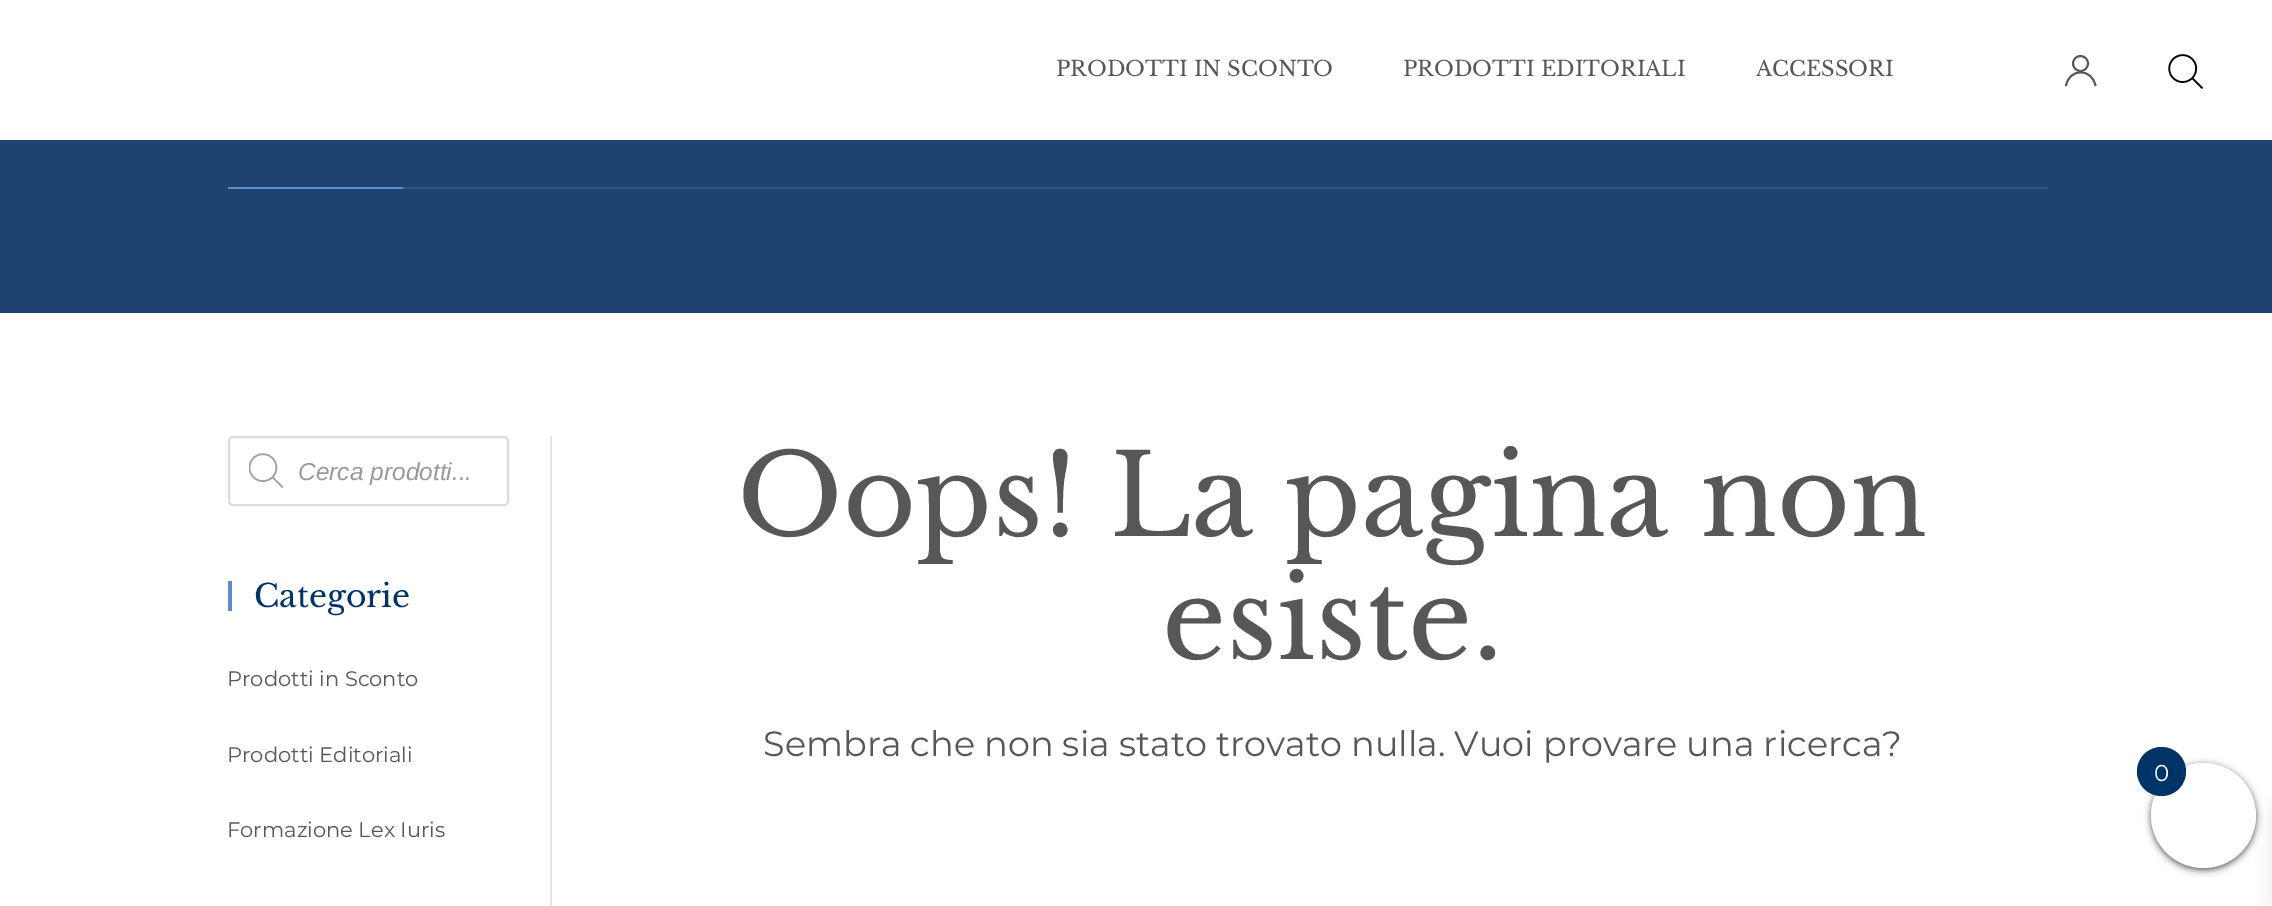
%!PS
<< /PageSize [2272 906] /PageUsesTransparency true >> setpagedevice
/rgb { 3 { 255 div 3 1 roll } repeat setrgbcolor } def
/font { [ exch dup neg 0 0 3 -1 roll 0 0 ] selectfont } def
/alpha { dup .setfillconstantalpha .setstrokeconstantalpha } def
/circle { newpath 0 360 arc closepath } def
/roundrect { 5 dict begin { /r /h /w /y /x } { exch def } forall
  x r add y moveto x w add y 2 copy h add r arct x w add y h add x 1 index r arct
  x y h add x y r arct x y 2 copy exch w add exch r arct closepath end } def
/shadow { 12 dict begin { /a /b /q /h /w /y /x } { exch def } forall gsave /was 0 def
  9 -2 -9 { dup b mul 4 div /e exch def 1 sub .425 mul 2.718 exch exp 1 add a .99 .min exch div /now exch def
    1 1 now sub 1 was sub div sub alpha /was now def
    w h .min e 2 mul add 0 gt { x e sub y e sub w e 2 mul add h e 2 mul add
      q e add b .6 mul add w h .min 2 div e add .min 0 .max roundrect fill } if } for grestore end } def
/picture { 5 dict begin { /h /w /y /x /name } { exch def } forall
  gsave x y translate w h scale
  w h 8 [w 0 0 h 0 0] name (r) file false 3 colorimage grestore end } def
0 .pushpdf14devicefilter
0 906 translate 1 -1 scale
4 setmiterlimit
255 255 255 rgb
0 0 2272 906 rectfill
87 87 87 rgb
1.9 setlinewidth
2080.5 63.5 7.5 circle stroke
2066 86 moveto 2069 67.5 2092.5 68 2095.5 86 curveto stroke
(img/1.rgb) 2168 54 35 35 picture
[
  [0 140 2272 173 31 67 112]
  [403 187 1645 2 53 86 126]
  [228 187 175 2 87 140 205]
] { aload pop rgb rectfill } forall
221 221 221 rgb
2 setlinewidth
229 437 279 68 4 roundrect stroke
(img/2.rgb) 249 453 35 35 picture
87 140 205 rgb
228 581 4 30 rectfill
229 229 231 rgb
550 436 2 470 rectfill
87 87 87 rgb
2151 765 105 105 52.5 3.5 1 shadow
0 0 0 rgb
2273 812 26 93 0 9 0.1 shadow
255 255 255 rgb
2203.5 815.5 52.5 circle fill
0 51 102 rgb
2161.5 771.5 24.5 circle fill
/LibreBaskerville-Regular 21 font
87 87 87 rgb
[
  [(PRODOTTI IN SCONTO) 1056 76]
  [(PRODOTTI EDITORIALI) 1403 76]
  [(ACCESSORI) 1756 76]
] { aload pop moveto show } forall
/LiberationSans-Italic 24.5 font
153 153 153 rgb
298 480 moveto (Cerca prodotti...) show
/LibreBaskerville-Regular 31.5 font
0 51 102 rgb
254 607 moveto (Categorie) show
/Montserrat-Regular 21 font
87 87 87 rgb
[
  [(Prodotti in Sconto) 227 686]
  [(Prodotti Editoriali) 227 762]
  [(Formazione Lex Iuris) 227 837]
] { aload pop moveto show } forall
/LibreBaskerville-Regular 112 font
737 536 moveto (Oops! La pagina non) show
1162 659 moveto (esiste.) show
/Montserrat-Regular 35 font
763 756 moveto (Sembra che non sia stato trovato nulla. Vuoi provare una ricerca?) show
/Montserrat-Regular 23 font
255 255 255 rgb
2154 781 moveto (0) show
.poppdf14devicefilter showpage
